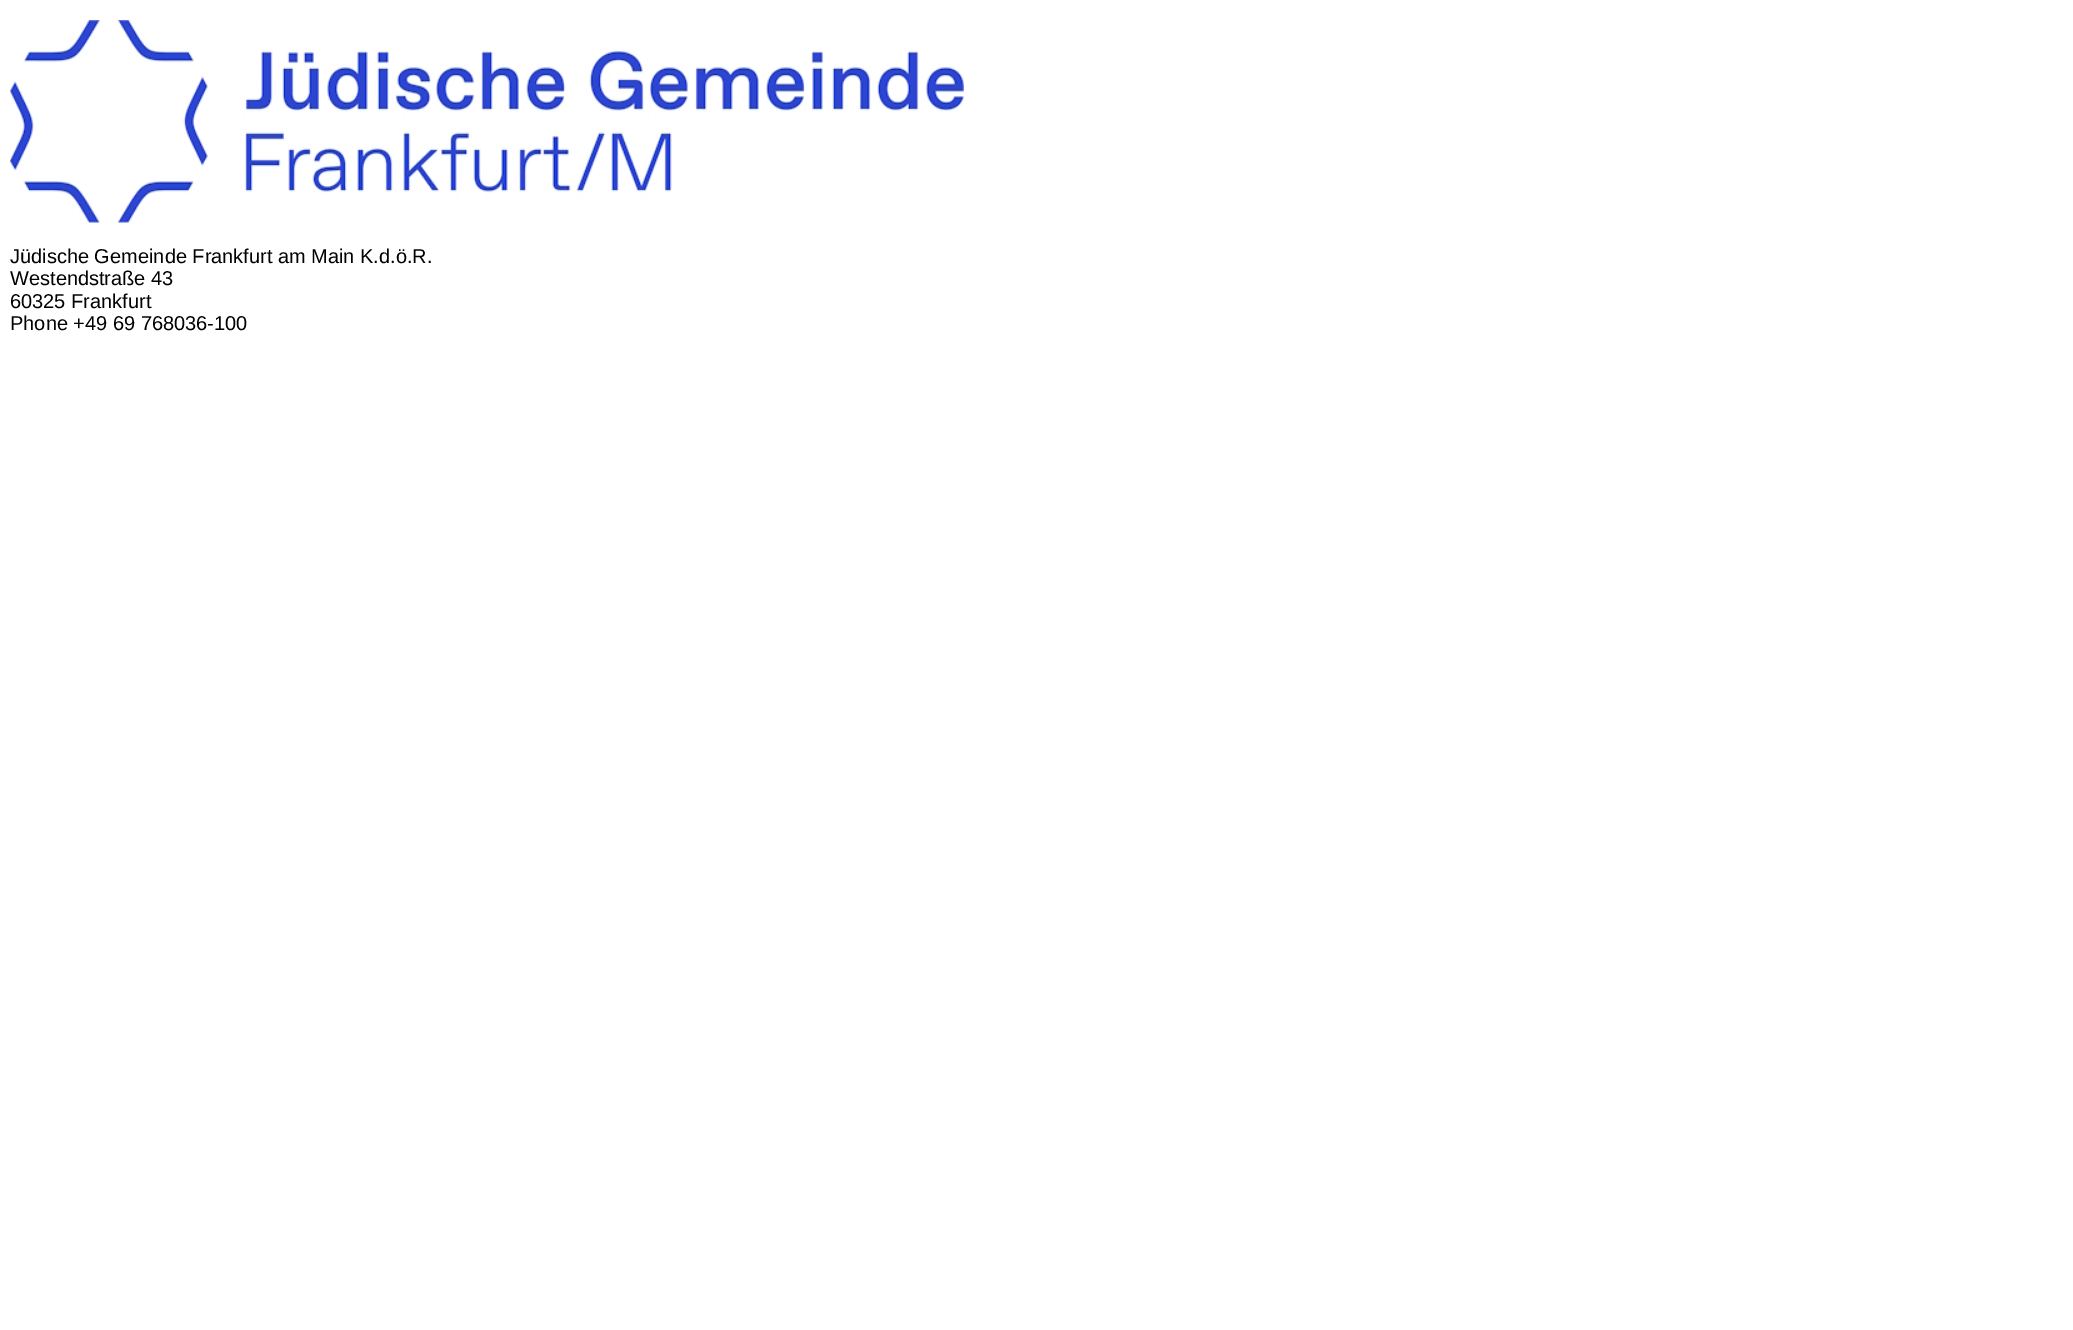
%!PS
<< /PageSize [2073 1330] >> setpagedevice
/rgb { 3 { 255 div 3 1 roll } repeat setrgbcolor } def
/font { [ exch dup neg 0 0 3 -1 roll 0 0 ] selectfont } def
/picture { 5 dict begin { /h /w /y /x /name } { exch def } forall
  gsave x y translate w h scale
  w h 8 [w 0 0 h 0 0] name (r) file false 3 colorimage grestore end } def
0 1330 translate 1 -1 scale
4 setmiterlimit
255 255 255 rgb
0 0 2073 1330 rectfill
(img/1.rgb) 10 20 954 203 picture
/LiberationSans-Regular 20 font
0 0 0 rgb
[
  [(Jüdische Gemeinde Frankfurt am Main K.d.ö.R.) 10 263]
  [(Westendstraße 43) 10 285]
  [(60325 Frankfurt) 10 308]
  [(Phone +49 69 768036-100) 10 330]
] { aload pop moveto show } forall
showpage
